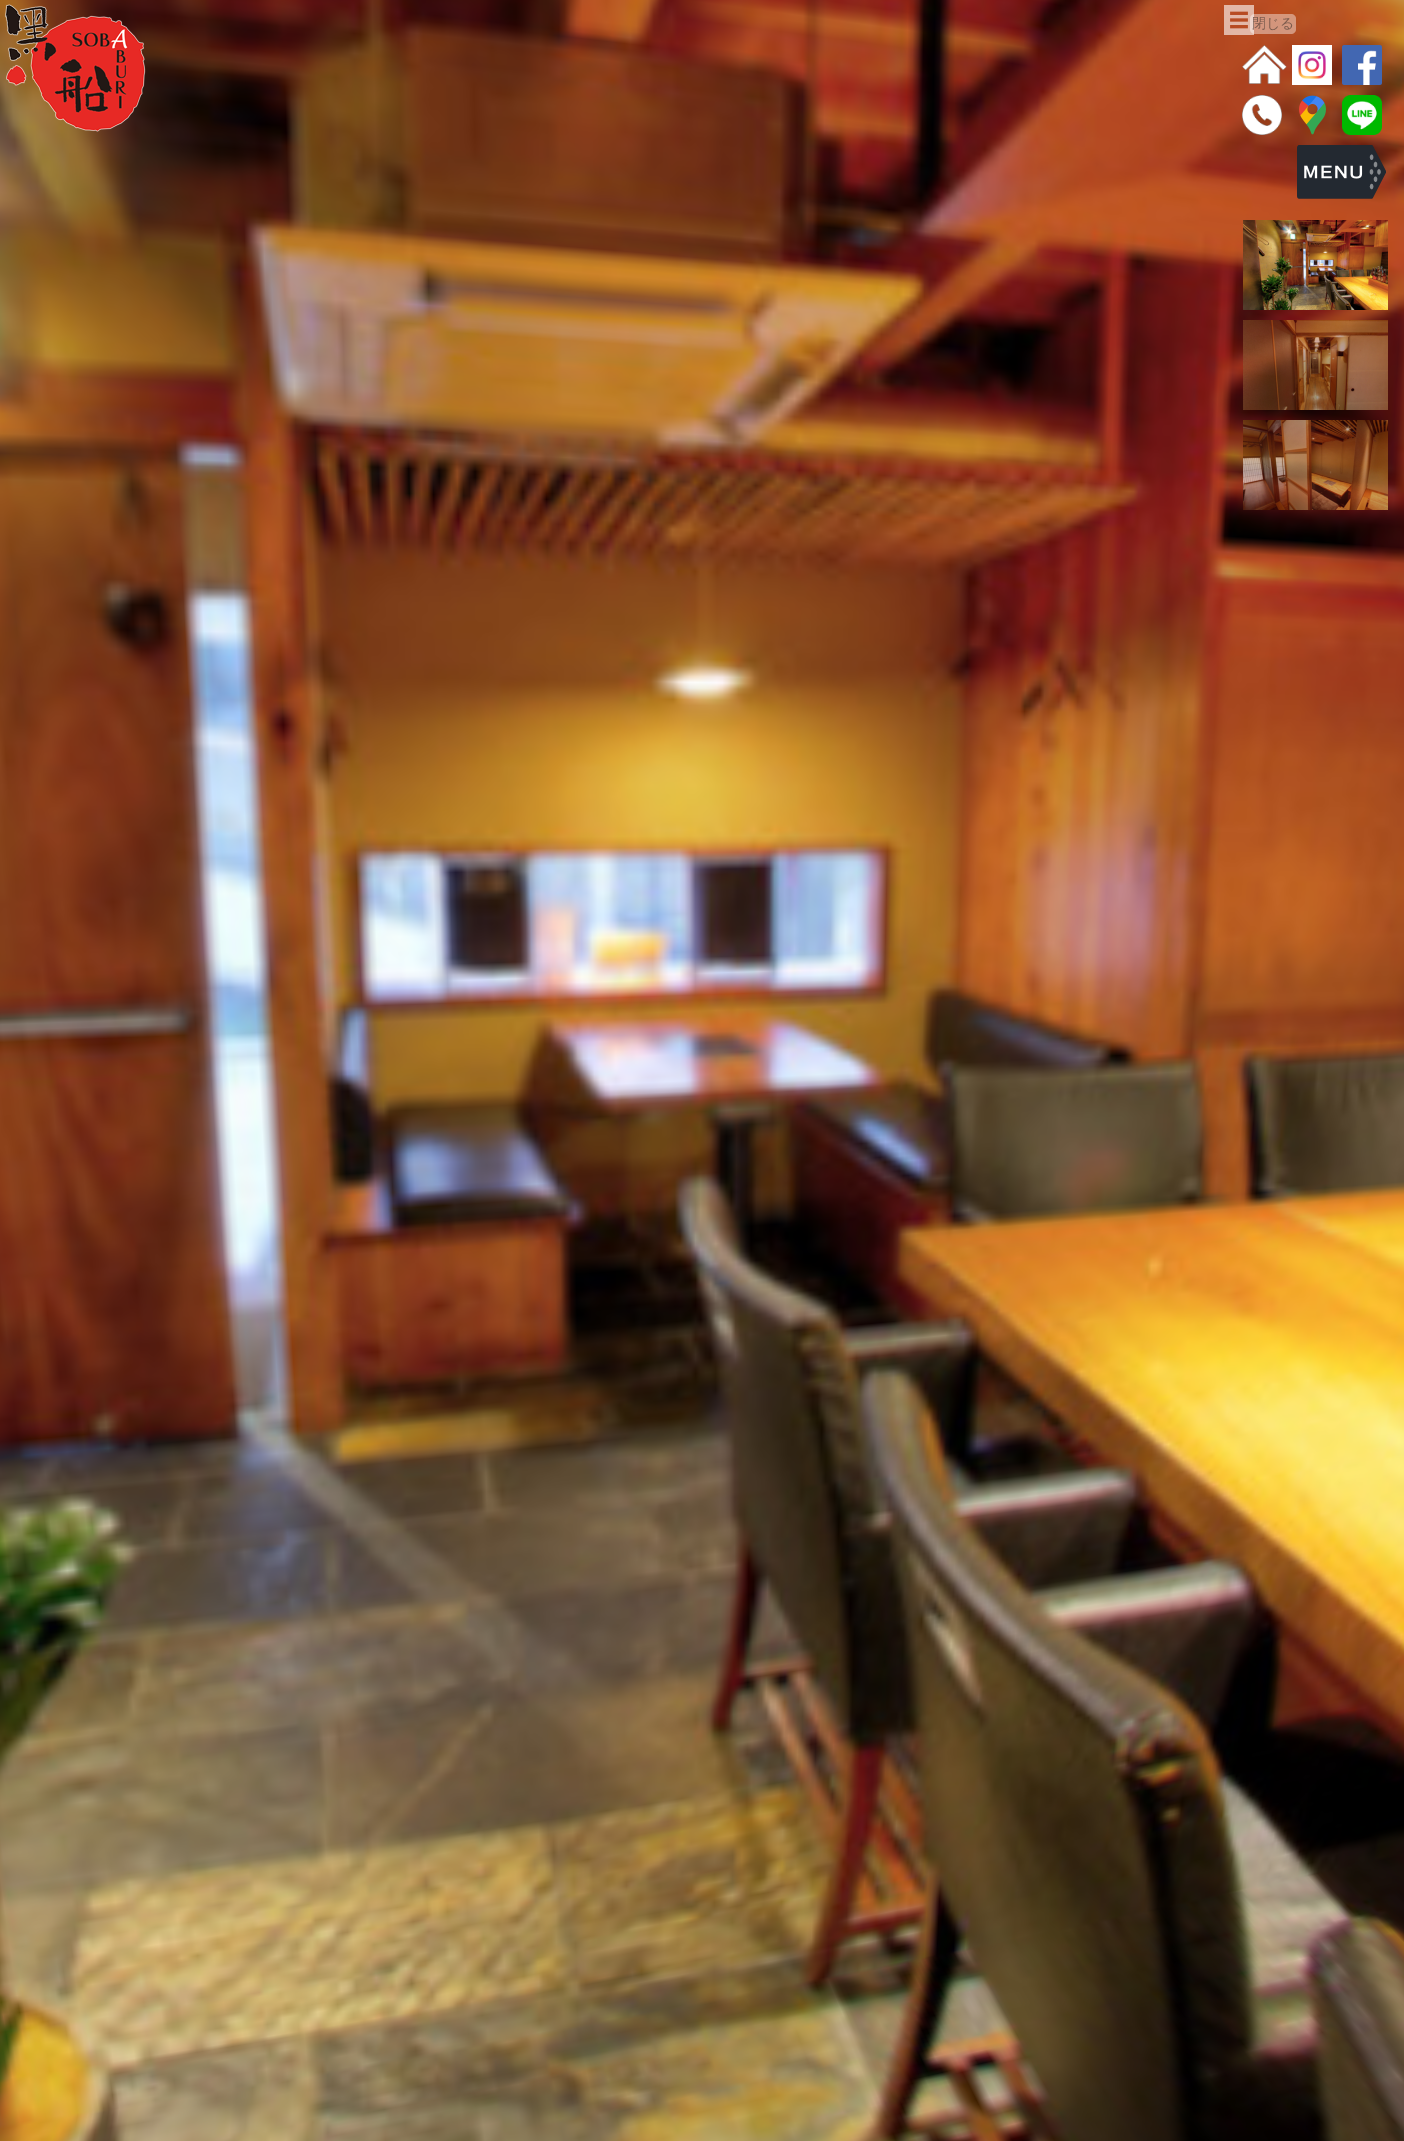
%!PS
<< /PageSize [1404 2141] /PageUsesTransparency true >> setpagedevice
/rgb { 3 { 255 div 3 1 roll } repeat setrgbcolor } def
/font { [ exch dup neg 0 0 3 -1 roll 0 0 ] selectfont } def
/alpha { dup .setfillconstantalpha .setstrokeconstantalpha } def
/roundrect { 5 dict begin { /r /h /w /y /x } { exch def } forall
  x r add y moveto x w add y 2 copy h add r arct x w add y h add x 1 index r arct
  x y h add x y r arct x y 2 copy exch w add exch r arct closepath end } def
/picture { 5 dict begin { /h /w /y /x /name } { exch def } forall
  gsave x y translate w h scale
  w h 8 [w 0 0 h 0 0] name (r) file false 3 colorimage grestore end } def
0 .pushpdf14devicefilter
0 2141 translate 1 -1 scale
4 setmiterlimit
255 255 255 rgb
0 0 1404 2141 rectfill
(img/1.rgb) 0 0 1404 2141 picture
(img/2.rgb) 5 4 141 128 picture
(img/3.rgb) 1224 5 30 30 picture
0.41 alpha
1250 14 46 20 5 roundrect fill
1 alpha
(img/4.rgb) 1242 45 45 39 picture
(img/5.rgb) 1292 45 40 40 picture
(img/6.rgb) 1342 45 40 40 picture
(img/7.rgb) 1242 95 40 40 picture
(img/8.rgb) 1299 95 27 40 picture
(img/9.rgb) 1342 95 40 40 picture
(img/10.rgb) 1297 145 89 54 picture
(img/11.rgb) 1243 220 145 90 picture
(img/12.rgb) 1243 320 145 90 picture
(img/13.rgb) 1243 420 145 90 picture
/WenQuanYiZenHei-Medium 14 font
124 91 77 rgb
1252 28 moveto (閉じる) show
.poppdf14devicefilter showpage
